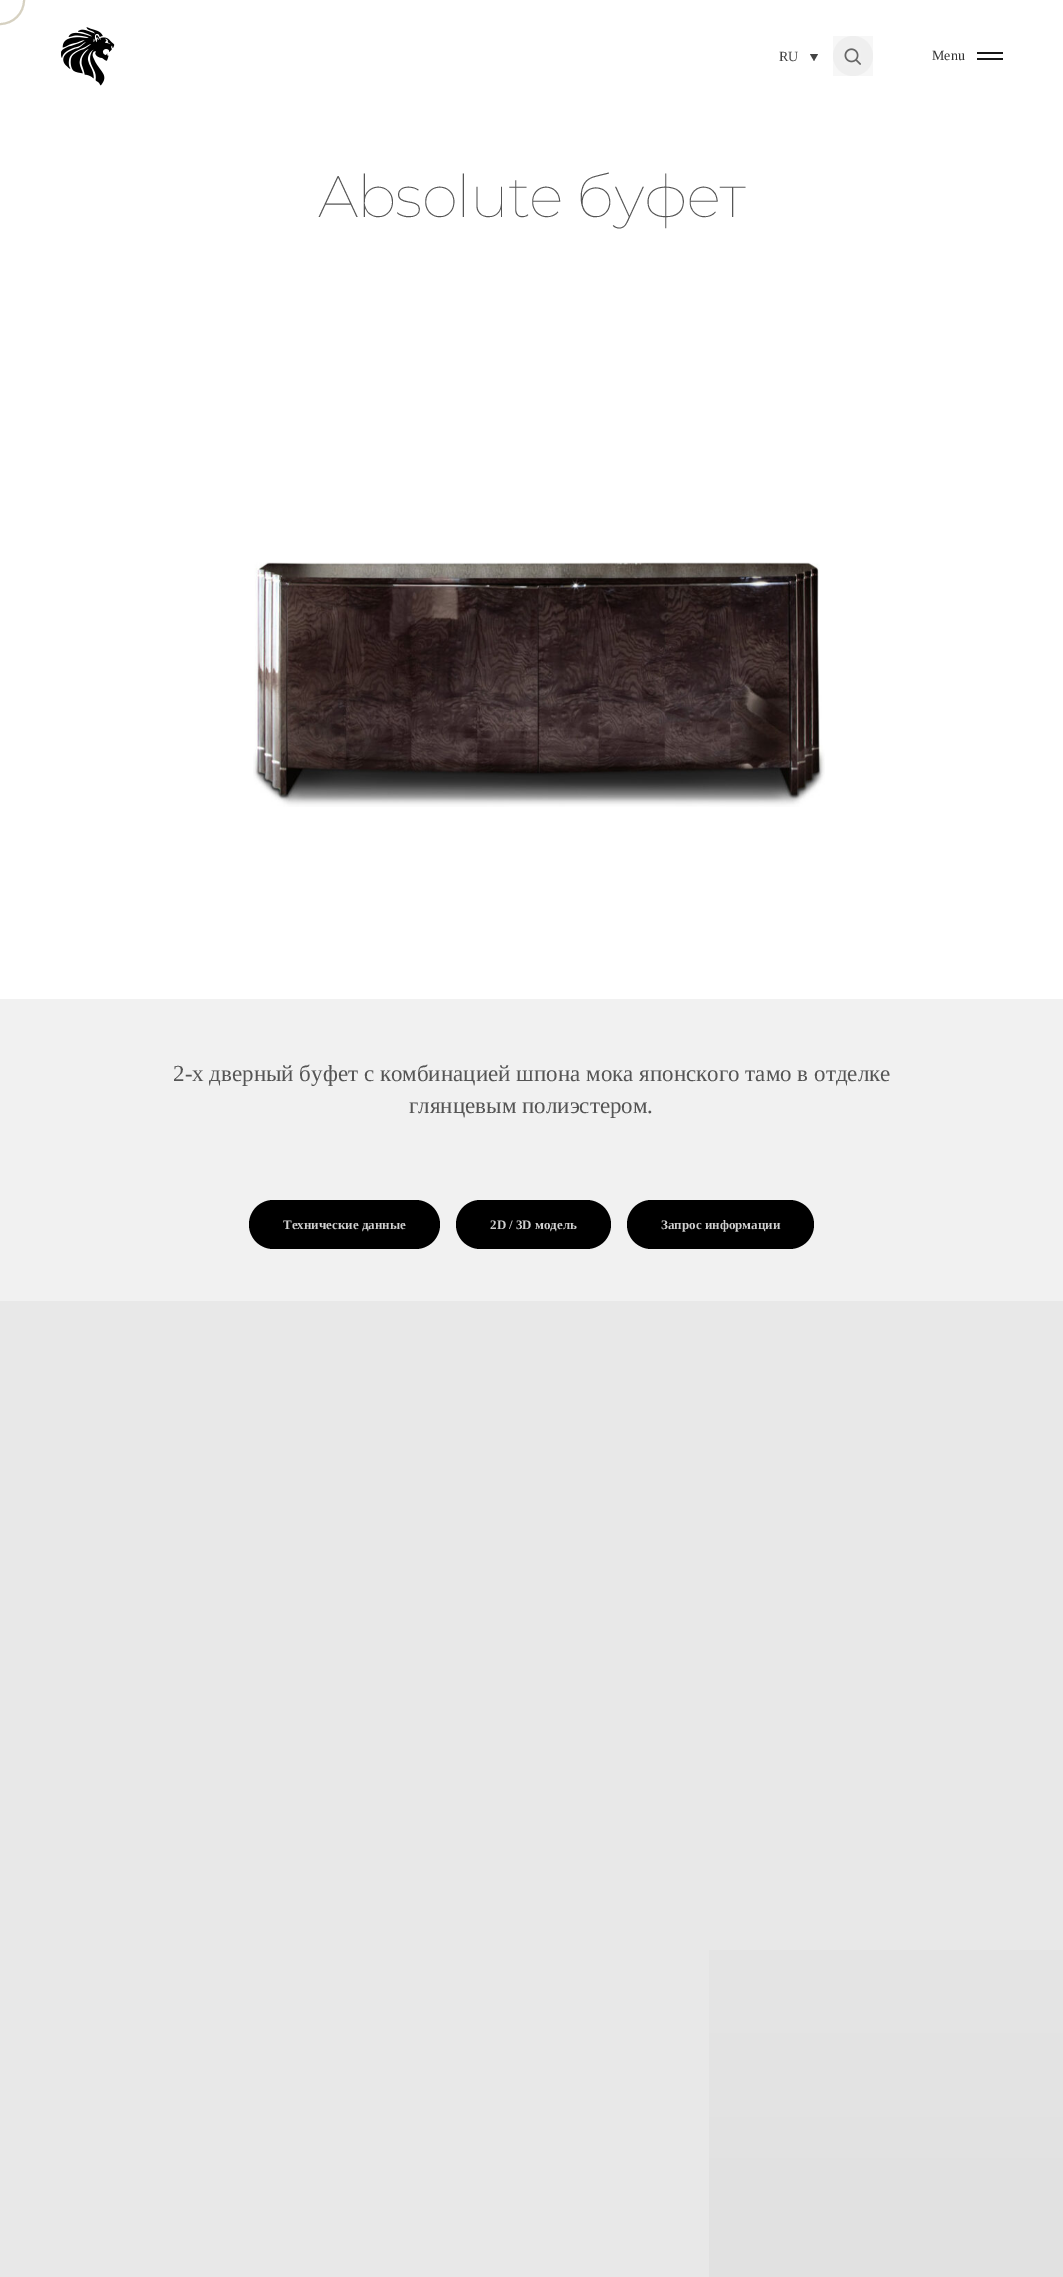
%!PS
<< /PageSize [1063 2277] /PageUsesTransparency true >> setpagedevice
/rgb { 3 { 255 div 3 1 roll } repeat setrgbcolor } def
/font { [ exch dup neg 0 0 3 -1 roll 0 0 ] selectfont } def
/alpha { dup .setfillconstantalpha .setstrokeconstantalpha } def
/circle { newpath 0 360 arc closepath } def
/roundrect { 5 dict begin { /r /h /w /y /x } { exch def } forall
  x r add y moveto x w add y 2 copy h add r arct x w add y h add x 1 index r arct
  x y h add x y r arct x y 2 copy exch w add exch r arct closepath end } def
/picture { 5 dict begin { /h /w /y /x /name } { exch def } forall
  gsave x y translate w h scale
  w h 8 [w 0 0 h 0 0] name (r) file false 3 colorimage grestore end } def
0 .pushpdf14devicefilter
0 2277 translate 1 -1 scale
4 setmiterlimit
255 255 255 rgb
0 0 1063 2277 rectfill
214 209 193 rgb
2 setlinewidth
0 0 24 circle stroke
(img/1.rgb) 61 27 54 59 picture
68 68 68 rgb
810 54 moveto 818 54 lineto 814 61 lineto closepath fill
247 247 247 rgb
853 56 20 circle fill
0.03 alpha
0 0 0 rgb
833 36 40 40 rectfill
1 alpha
(img/2.rgb) 844 48 17 17 picture
24 24 24 rgb
977 52 26 2 rectfill
977 58 26 2 rectfill
(img/3.rgb) 253 562 572 245 picture
241 241 241 rgb
0 999 1063 302 rectfill
0 0 0 rgb
249 1200 191 49 24.5 roundrect fill
456 1200 155 49 24.5 roundrect fill
627 1200 187 49 24.5 roundrect fill
232 232 232 rgb
0 1301 1063 976 rectfill
(img/4.rgb) 709 1950 354 327 picture
/LiberationSerif-Regular 14 font
68 68 68 rgb
779 61 moveto (RU) show
51 51 51 rgb
932 60 moveto (Menu) show
/Montserrat-Thin 58.5 font
85 85 85 rgb
318 217 moveto -1 0 (Absolute буфет) ashow
/LiberationSerif-Regular 23 font
173 1081 moveto (2-х дверный буфет с комбинацией шпона мока японского тамо в отделке) show
409 1113 moveto (глянцевым полиэстером.) show
/LiberationSerif-Bold 13 font
207 207 207 rgb
[
  [(Технические данные) 283 1229]
  [(2D / 3D модель) 490 1229]
  [(Запрос информации) 661 1229]
] { aload pop moveto show } forall
.poppdf14devicefilter showpage
